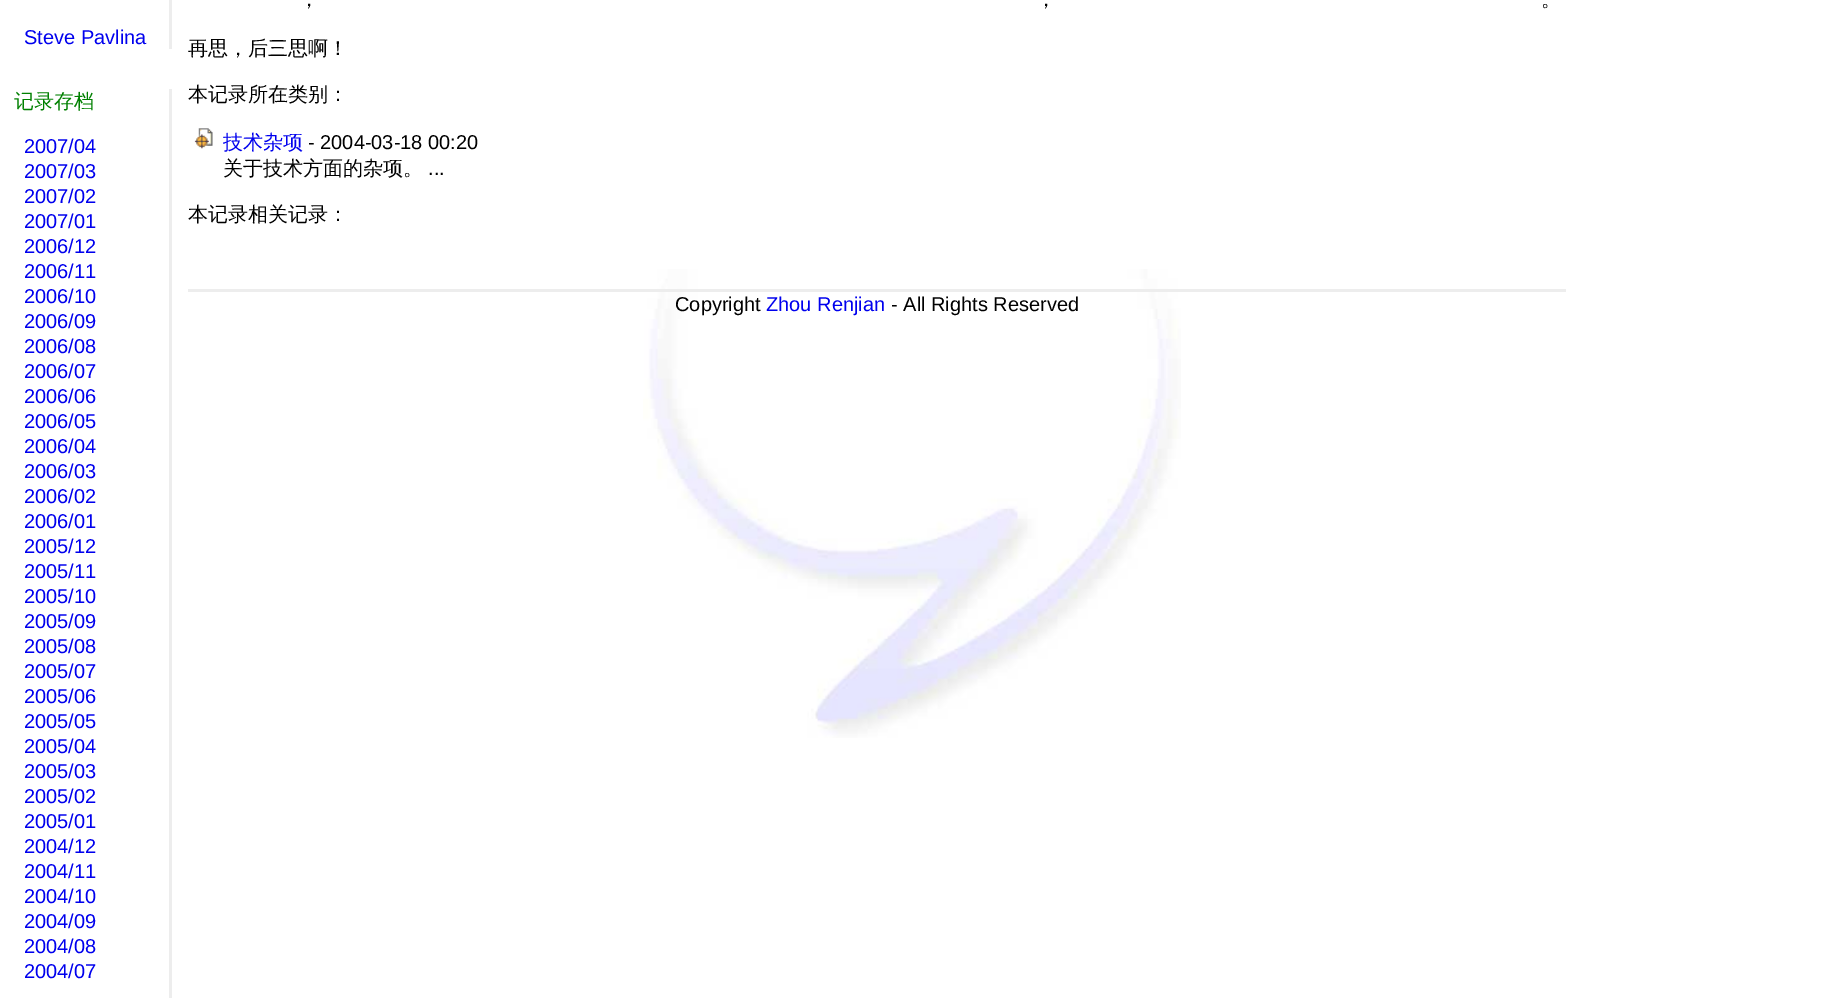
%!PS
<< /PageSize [1836 998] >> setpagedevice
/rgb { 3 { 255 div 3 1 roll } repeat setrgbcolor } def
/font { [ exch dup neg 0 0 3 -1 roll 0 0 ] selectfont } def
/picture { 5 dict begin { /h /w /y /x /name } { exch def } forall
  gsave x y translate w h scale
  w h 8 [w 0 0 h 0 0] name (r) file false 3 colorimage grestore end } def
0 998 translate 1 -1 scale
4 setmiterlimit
255 255 255 rgb
0 0 1836 998 rectfill
(img/1.rgb) 643 269 538 469 picture
237 237 237 rgb
169 0 3 49 rectfill
169 89 3 909 rectfill
(img/2.rgb) 194 128 19 21 picture
188 289 1378 3 rectfill
/LiberationSans-Regular 20 font
0 0 238 rgb
24 44 moveto (Steve Pavlina) show
/WenQuanYiZenHei-Medium 20 font
0 128 0 rgb
14 108 moveto (记录存档) show
/LiberationSans-Regular 20 font
0 0 238 rgb
[
  [(2007/04) 24 153]
  [(2007/03) 24 178]
  [(2007/02) 24 203]
  [(2007/01) 24 228]
  [(2006/12) 24 253]
  [(2006/11) 24 278]
  [(2006/10) 24 303]
  [(2006/09) 24 328]
  [(2006/08) 24 353]
  [(2006/07) 24 378]
  [(2006/06) 24 403]
  [(2006/05) 24 428]
  [(2006/04) 24 453]
  [(2006/03) 24 478]
  [(2006/02) 24 503]
  [(2006/01) 24 528]
  [(2005/12) 24 553]
  [(2005/11) 24 578]
  [(2005/10) 24 603]
  [(2005/09) 24 628]
  [(2005/08) 24 653]
  [(2005/07) 24 678]
  [(2005/06) 24 703]
  [(2005/05) 24 728]
  [(2005/04) 24 753]
  [(2005/03) 24 778]
  [(2005/02) 24 803]
  [(2005/01) 24 828]
  [(2004/12) 24 853]
  [(2004/11) 24 878]
  [(2004/10) 24 903]
  [(2004/09) 24 928]
  [(2004/08) 24 953]
  [(2004/07) 24 978]
] { aload pop moveto show } forall
/WenQuanYiZenHei-Medium 20 font
0 0 0 rgb
[
  [(，) 299 6]
  [(，) 1036 6]
  [(。) 1541 6]
  [(再思，后三思啊！) 188 55]
  [(本记录所在类别：) 188 101]
] { aload pop moveto show } forall
0 0 238 rgb
223 149 moveto (技术杂项) show
/LiberationSans-Regular 20 font
0 0 0 rgb
308 149 moveto (- 2004-03-18 00:20) show
/WenQuanYiZenHei-Medium 20 font
223 175 moveto (关于技术方面的杂项。) show
/LiberationSans-Regular 20 font
428 175 moveto (...) show
/WenQuanYiZenHei-Medium 20 font
188 221 moveto (本记录相关记录：) show
/LiberationSans-Regular 20 font
675 311 moveto (Copyright) show
0 0 238 rgb
766 311 moveto (Zhou Renjian) show
0 0 0 rgb
891 311 moveto (- All Rights Reserved) show
showpage
